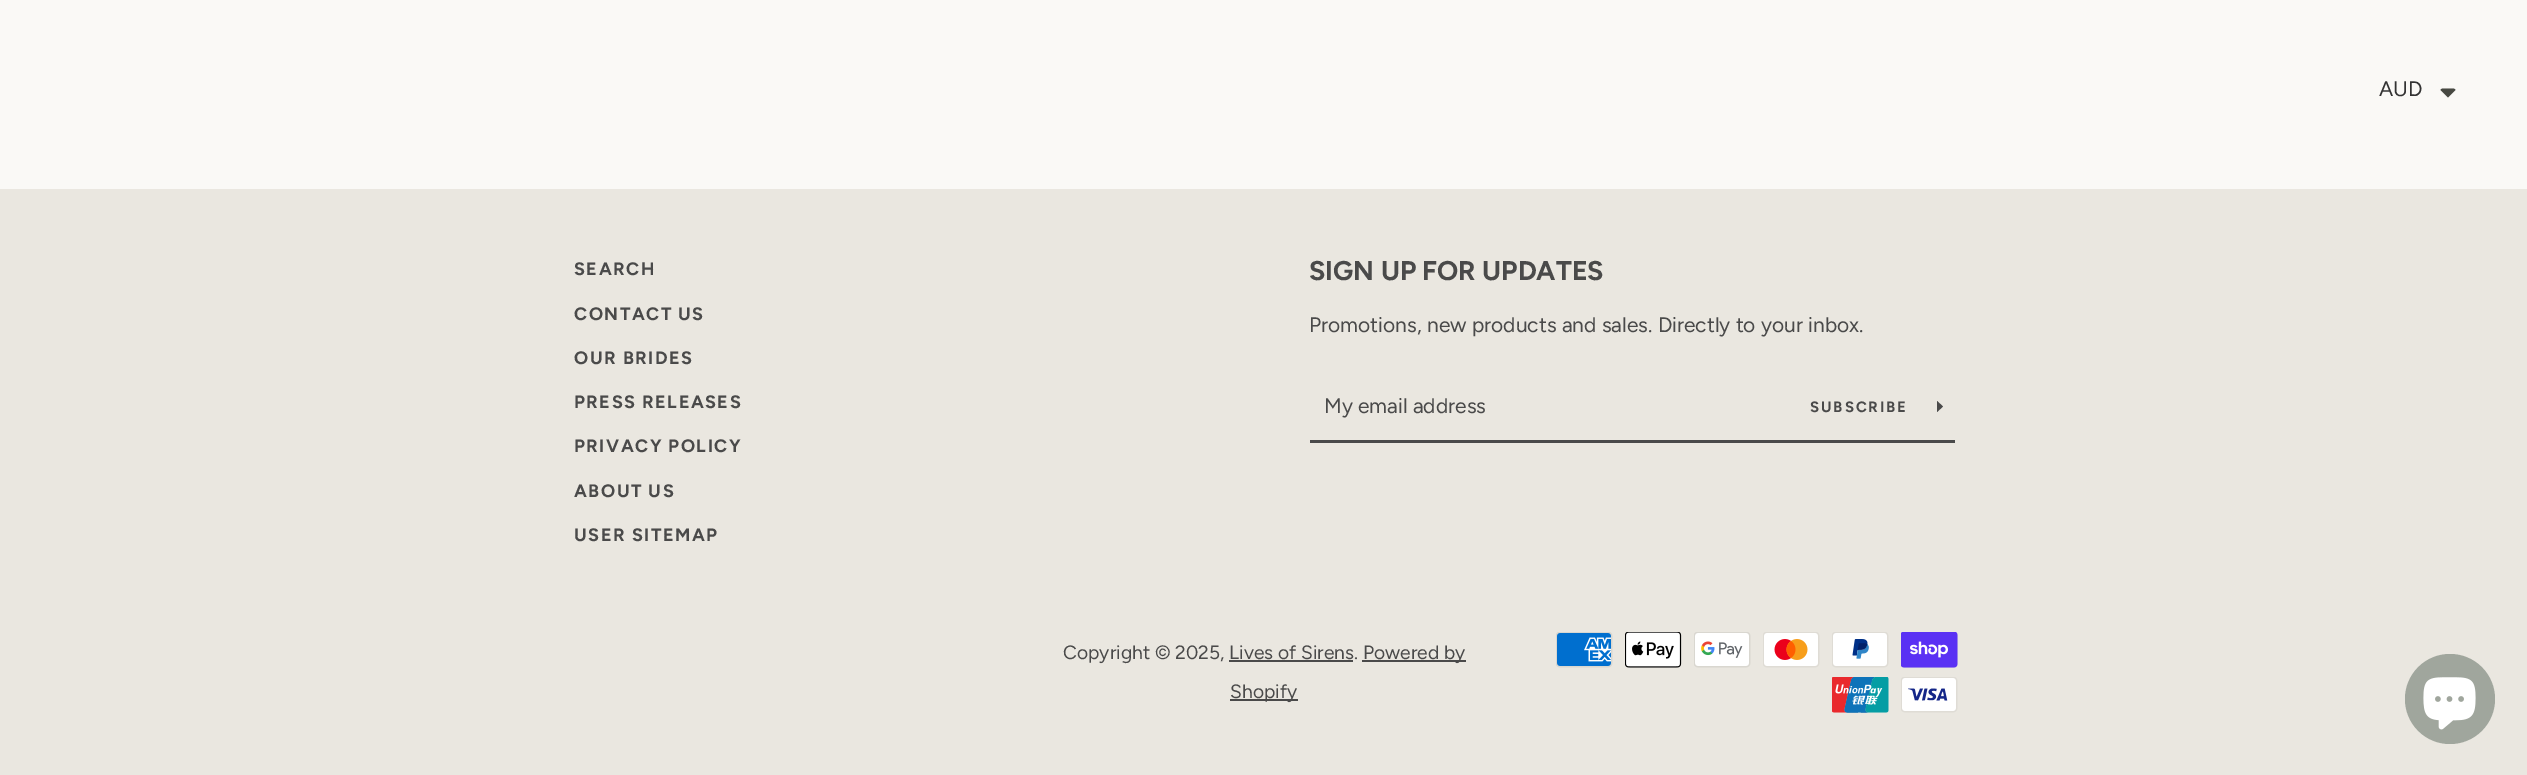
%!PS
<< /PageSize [2527 775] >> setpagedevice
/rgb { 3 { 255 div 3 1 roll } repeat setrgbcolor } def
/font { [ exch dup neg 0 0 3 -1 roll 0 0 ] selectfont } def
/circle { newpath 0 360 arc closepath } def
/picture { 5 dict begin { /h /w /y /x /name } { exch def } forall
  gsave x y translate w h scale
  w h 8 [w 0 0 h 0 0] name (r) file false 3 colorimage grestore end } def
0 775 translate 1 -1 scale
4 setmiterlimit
234 231 224 rgb
0 0 2527 775 rectfill
250 249 246 rgb
0 0 2527 189 rectfill
71 73 66 rgb
2443.5 88.5 moveto 2442 88.5 2441 89 2440.5 90 curveto 2448 97.5 lineto 2455.5 90 lineto 2455 89 2454 88.5 2452.5 88.5 curveto closepath fill
74 74 74 rgb
1310 440 645 3 rectfill
1943 406.5 moveto 1937 412 lineto 1937 401 lineto closepath fill
[
  [1229 660 124 2 74 74 74]
  [1362 660 104 2 74 74 74]
  [1230 699 68 2 74 74 74]
] { aload pop rgb rectfill } forall
(img/1.rgb) 1556 632 57 36 picture
(img/2.rgb) 1625 632 57 36 picture
(img/3.rgb) 1694 632 57 36 picture
(img/4.rgb) 1763 632 57 36 picture
(img/5.rgb) 1832 632 57 36 picture
(img/6.rgb) 1901 632 57 36 picture
(img/7.rgb) 1832 677 57 36 picture
(img/8.rgb) 1901 677 57 36 picture
160 166 157 rgb
2450 699 45 circle fill
(img/9.rgb) 2423 677 53 53 picture
/Figtree-Regular 21 font
51 51 51 rgb
2379 96 moveto (AUD) show
/Figtree-Bold 18 font
74 74 74 rgb
574 275 moveto 1.5 0 (SEARCH) ashow
574 320 moveto 1.5 0 (CONTACT US) ashow
574 364 moveto 1.5 0 (OUR BRIDES) ashow
574 408 moveto 1.5 0 (PRESS RELEASES) ashow
574 452 moveto 1.5 0 (PRIVACY POLICY) ashow
574 497 moveto 1.5 0 (ABOUT US) ashow
574 541 moveto 1.5 0 (USER SITEMAP) ashow
/Figtree-Bold 27 font
1309 280 moveto (SIGN UP FOR UPDATES) show
/Figtree-Regular 21 font
1309 332 moveto (Promotions, new products and sales. Directly to your inbox.) show
1324 413 moveto (My email address) show
/Figtree-Bold 15 font
1810 412 moveto 1.9 0 (SUBSCRIBE) ashow
/Figtree-Regular 19.25 font
[
  [(Copyright © 2025, Lives of Sirens.) 1063 659]
  [(Powered by) 1363 659]
  [(Shopify) 1230 698]
] { aload pop moveto show } forall
showpage
